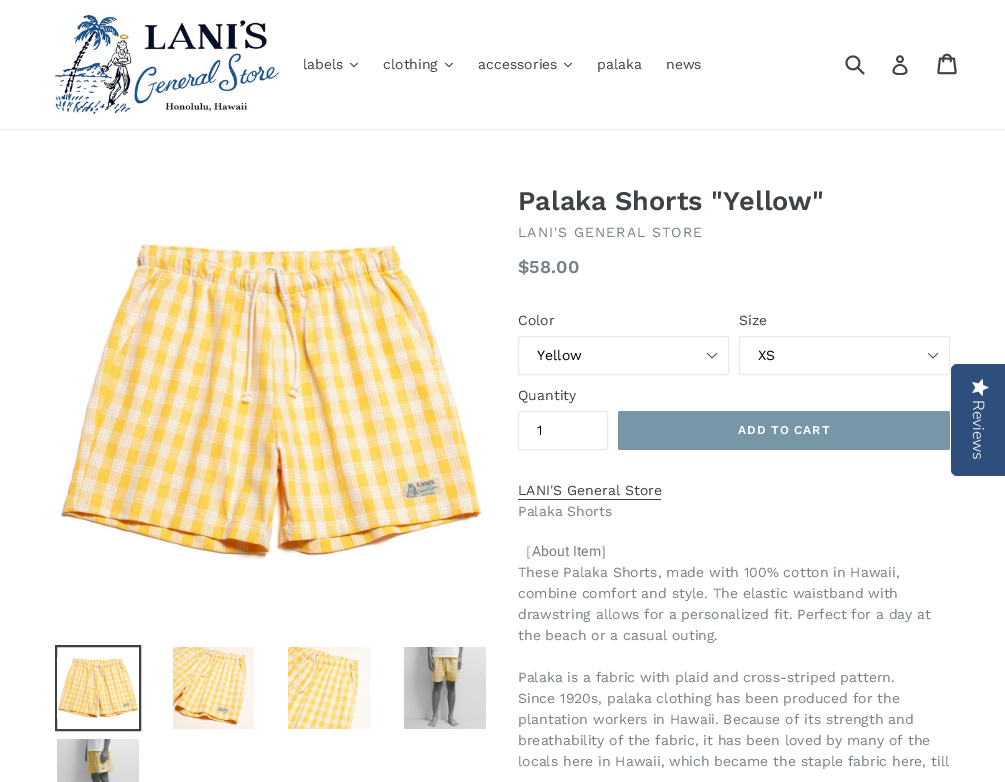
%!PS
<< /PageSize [1005 782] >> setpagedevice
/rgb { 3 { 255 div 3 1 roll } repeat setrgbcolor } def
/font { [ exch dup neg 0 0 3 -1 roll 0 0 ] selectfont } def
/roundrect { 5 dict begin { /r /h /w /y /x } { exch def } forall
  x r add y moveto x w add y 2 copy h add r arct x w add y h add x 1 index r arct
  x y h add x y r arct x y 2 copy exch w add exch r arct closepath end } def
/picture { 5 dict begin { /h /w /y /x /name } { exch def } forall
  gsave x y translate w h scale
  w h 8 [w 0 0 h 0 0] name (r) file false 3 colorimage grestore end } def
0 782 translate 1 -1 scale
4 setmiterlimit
255 255 255 rgb
0 0 1005 782 rectfill
232 233 235 rgb
0 129 1005 1 rectfill
(img/1.rgb) 55 15 224 99 picture
(img/2.rgb) 350 62 8 6 picture
(img/2.rgb) 445 62 8 6 picture
(img/2.rgb) 564 62 8 6 picture
(img/3.rgb) 845 55 20 20 picture
(img/4.rgb) 892 55 16 20 picture
(img/5.rgb) 937 53 20 22 picture
(img/6.rgb) 60 243 425 317 picture
61 66 70 rgb
2 setlinewidth
56 646 84 84 rectstroke
(img/7.rgb) 57 657 81 62 picture
(img/8.rgb) 173 647 81 82 picture
(img/9.rgb) 288 647 82 82 picture
(img/10.rgb) 404 647 82 82 picture
(img/11.rgb) 57 739 82 43 picture
(img/12.rgb) 706 352 12 7 picture
232 233 235 rgb
1 setlinewidth
518.5 336.5 210 38 1.5 roundrect stroke
(img/12.rgb) 927 352 12 7 picture
739.5 336.5 210 38 1.5 roundrect stroke
518.5 411.5 89 38 1.5 roundrect stroke
119 150 168 rgb
618 411 332 39 2 roundrect fill
61 66 70 rgb
518 499 143 1 rectfill
46 79 124 rgb
1005 364 moveto 1005 476 lineto 957 476 lineto 954 476 951 473 951 470 curveto 951 370 lineto 951 367 954 364 957 364 curveto closepath fill
(img/13.rgb) 972 378 17 19 picture
/WorkSans-Regular 14 font
61 66 70 rgb
[
  [(labels) 303 69]
  [(clothing) 383 69]
  [(accessories) 478 69]
  [(palaka) 597 69]
  [(news) 666 69]
] { aload pop moveto show } forall
/WorkSans-SemiBold 27 font
518 210 moveto (Palaka Shorts "Yellow") show
/WorkSans-Regular 14 font
120 129 136 rgb
518 237 moveto 1 0 (LANI'S GENERAL STORE) ashow
/WorkSans-SemiBold 18 font
518 273 moveto ($58.00) show
/WorkSans-Regular 14 font
61 66 70 rgb
518 325 moveto (Color) show
0 0 0 rgb
537 360 moveto (Yellow) show
61 66 70 rgb
739 325 moveto (Size) show
0 0 0 rgb
758 360 moveto (XS) show
61 66 70 rgb
518 400 moveto (Quantity) show
0 0 0 rgb
537 435 moveto (1) show
/WorkSans-SemiBold 12 font
255 255 255 rgb
738 434 moveto 1 0 (ADD TO CART) ashow
/WorkSans-Regular 14 font
61 66 70 rgb
518 495 moveto (LANI'S General Store) show
120 129 136 rgb
518 516 moveto (Palaka Shorts) show
/WenQuanYiZenHei-Medium 14 font
518 556 moveto (［) show
/Roboto-Regular 14 font
532 556 moveto (About Item) show
/WenQuanYiZenHei-Medium 14 font
600 556 moveto (］) show
/WorkSans-Regular 14 font
[
  [(These Palaka Shorts, made with 100% cotton in Hawaii,) 518 577]
  [(combine comfort and style. The elastic waistband with) 518 598]
  [(drawstring allows for a personalized fit. Perfect for a day at) 518 619]
  [(the beach or a casual outing.) 518 640]
  [(Palaka is a fabric with plaid and cross-striped pattern.) 518 682]
  [(Since 1920s, palaka clothing has been produced for the) 518 703]
  [(plantation workers in Hawaii. Because of its strength and) 518 724]
  [(breathability of the fabric, it has been loved by many of the) 518 745]
  [(locals here in Hawaii, which became the staple fabric here, till) 518 766]
] { aload pop moveto show } forall
/NunitoSans-Light 16 font
255 255 255 rgb
gsave 973 400 translate 90 rotate 0 0 moveto (Reviews) show grestore
showpage
